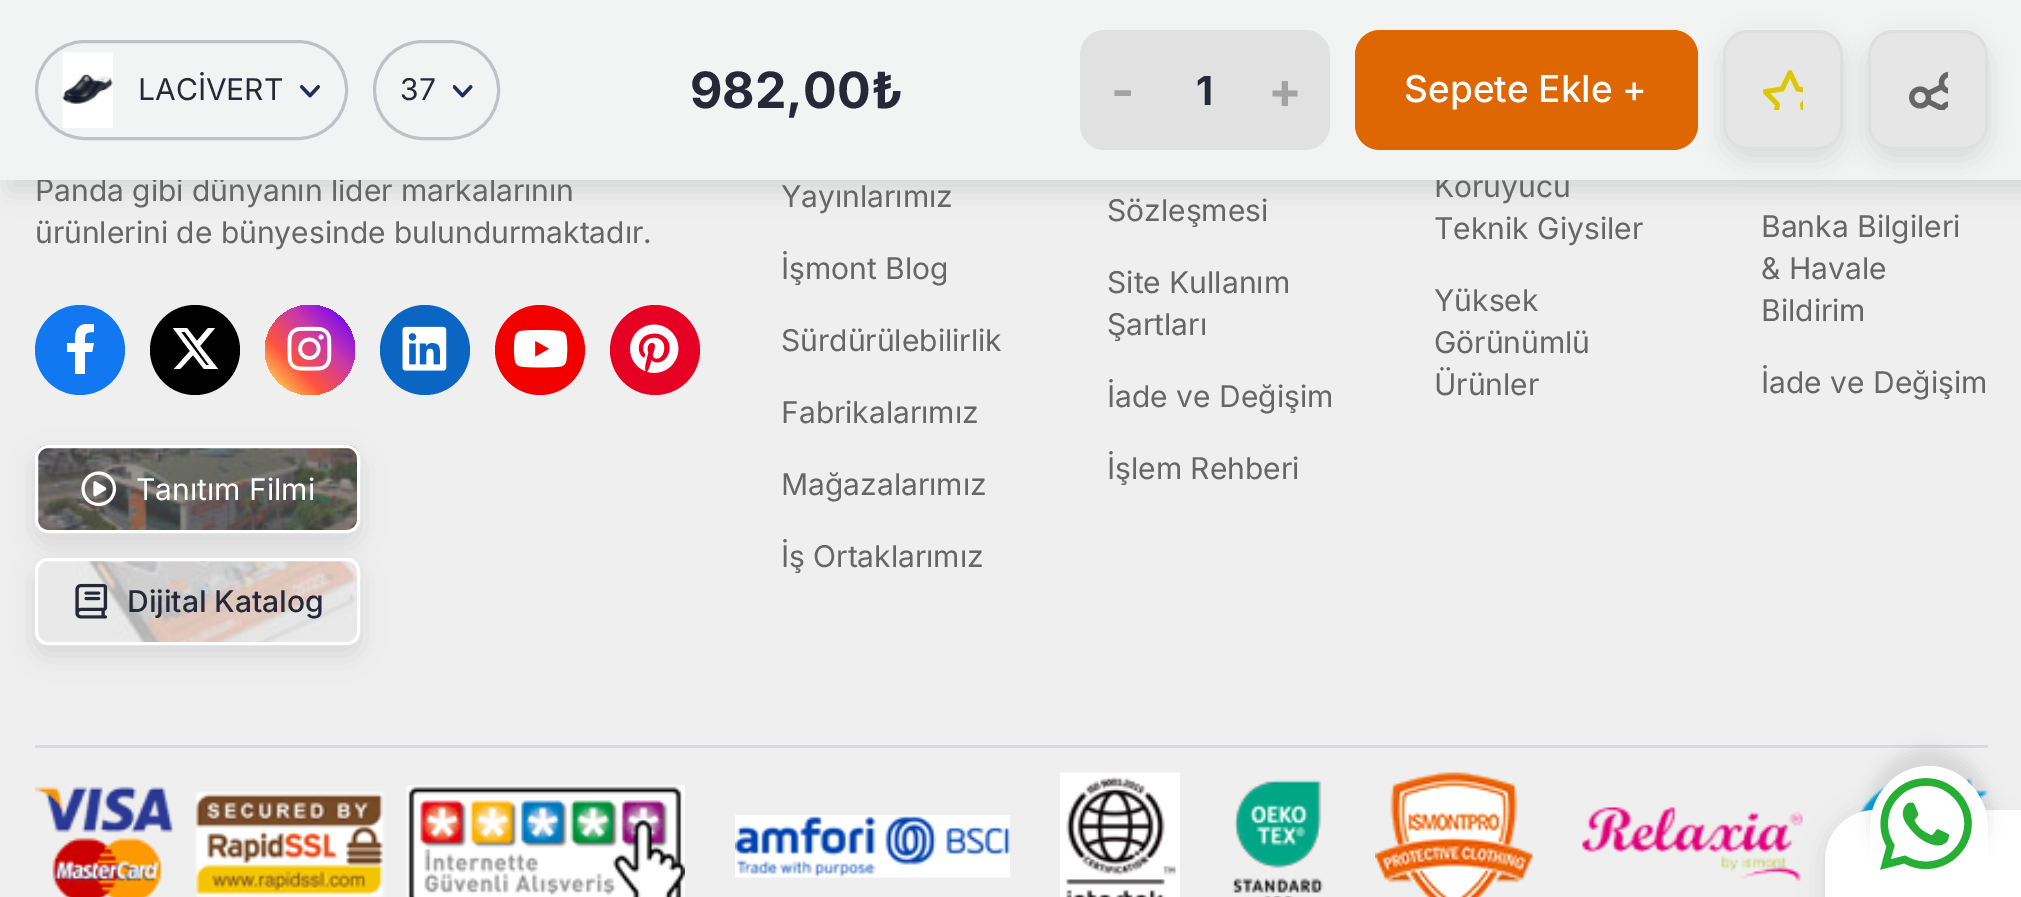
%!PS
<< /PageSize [2021 897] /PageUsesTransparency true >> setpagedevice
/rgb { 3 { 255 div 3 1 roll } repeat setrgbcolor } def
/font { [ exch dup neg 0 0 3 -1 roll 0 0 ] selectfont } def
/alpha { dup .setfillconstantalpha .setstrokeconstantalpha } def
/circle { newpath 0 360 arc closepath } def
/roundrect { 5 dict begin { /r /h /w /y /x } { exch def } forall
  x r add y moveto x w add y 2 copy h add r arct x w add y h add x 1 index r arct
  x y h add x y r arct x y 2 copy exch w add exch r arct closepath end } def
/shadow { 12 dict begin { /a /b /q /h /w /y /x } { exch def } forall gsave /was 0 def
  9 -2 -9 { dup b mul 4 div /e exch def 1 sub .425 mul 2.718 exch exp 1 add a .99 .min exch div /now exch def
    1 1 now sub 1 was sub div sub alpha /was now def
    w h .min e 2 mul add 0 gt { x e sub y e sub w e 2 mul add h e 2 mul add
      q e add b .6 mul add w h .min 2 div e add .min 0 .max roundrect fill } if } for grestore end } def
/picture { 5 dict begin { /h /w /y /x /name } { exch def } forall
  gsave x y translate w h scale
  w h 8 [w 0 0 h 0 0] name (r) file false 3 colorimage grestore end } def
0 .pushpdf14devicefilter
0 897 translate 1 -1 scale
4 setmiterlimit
239 239 239 rgb
0 0 2021 897 rectfill
0 0 0 rgb
10 10 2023 180 0 12.5 0.1 shadow
17 120 242 rgb
80 350 45 circle fill
255 255 255 rgb
92 352 moveto 94 343 lineto 85 343 lineto 85 334 84 332 94 332 curveto 94 324 lineto 86 324 lineto 75 325 75 334 75 343 curveto 67 343 lineto 67 352 lineto 75 352 lineto 75 374 lineto 85 374 lineto 85 352 lineto closepath fill
0 0 0 rgb
195 350 45 circle fill
255 255 255 rgb
208 328 moveto 215 328 lineto 200 346 lineto 218 369 lineto 204 369 lineto 193 355 lineto 180 369 lineto 174 369 lineto 190 351 lineto 173 328 lineto 187 328 lineto 197 341 lineto closepath 206 365 moveto 209 365 lineto 185 332 lineto 181 332 lineto closepath fill
gsave 310 350 45 circle clip newpath
<< /ShadingType 2 /ColorSpace /DeviceRGB /Coords [265 395 355 305] /Extend [true true] /Function << /FunctionType 3 /Domain [0 1] /Functions [<< /FunctionType 2 /Domain [0 1] /C0 [1 0.867 0.333] /C1 [1 0.867 0.333] /N 1 >> << /FunctionType 2 /Domain [0 1] /C0 [1 0.867 0.333] /C1 [1 0.329 0.243] /N 1 >> << /FunctionType 2 /Domain [0 1] /C0 [1 0.329 0.243] /C1 [0.784 0.216 0.671] /N 1 >> << /FunctionType 2 /Domain [0 1] /C0 [0.784 0.216 0.671] /C1 [0.4 0 1] /N 1 >> << /FunctionType 2 /Domain [0 1] /C0 [0.4 0 1] /C1 [0.4 0 1] /N 1 >>] /Bounds [0.06 0.33 0.63 0.94] /Encode [0 1 0 1 0 1 0 1 0 1] >> >> shfill grestore
(img/6.rgb) 287 326 45 45 picture
10 102 194 rgb
425 350 45 circle fill
(img/7.rgb) 402 326 45 45 picture
242 0 0 rgb
540 350 45 circle fill
(img/8.rgb) 513 330 55 38 picture
230 0 35 rgb
655 350 45 circle fill
(img/9.rgb) 630 324 49 49 picture
0 0 0 rgb
35 455 325 88 13 12.5 0.1 shadow
(img/10.rgb) 37 445 321 85 picture
255 255 255 rgb
3 setlinewidth
36.5 446.5 322 85 11.5 roundrect stroke
(img/11.rgb) 81 471 36 36 picture
0 0 0 rgb
35 568 325 87 13 12.5 0.1 shadow
(img/12.rgb) 38 560 320 85 picture
255 255 255 rgb
36.5 559.5 322 84 11.5 roundrect stroke
(img/13.rgb) 75 583 33 36 picture
217 218 223 rgb
35 745 1953 3 rectfill
(img/14.rgb) 35 785 650 112 picture
(img/15.rgb) 735 815 275 63 picture
(img/16.rgb) 1060 772 120 125 picture
(img/17.rgb) 1232 779 92 118 picture
(img/18.rgb) 1375 772 158 125 picture
(img/19.rgb) 1582 807 221 76 picture
(img/20.rgb) 1859 777 129 36 picture
0 0 0 rgb
1825 810 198 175 50 12.5 0.1 shadow
255 255 255 rgb
1875 810 moveto 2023 810 lineto 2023 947 lineto 1838 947 lineto 1831 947 1825 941 1825 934 curveto 1825 860 lineto 1825 832.5 1847.5 810 1875 810 curveto closepath fill
0 0 0 rgb
1870 750 118 125 59 7.5 0.1 shadow
255 255 255 rgb
1929 766 moveto 1961 766 1988 794 1988 828 curveto 1988 885 lineto 1988 888 1985 891 1981 891 curveto 1876 891 lineto 1873 891 1870 888 1870 885 curveto 1870 828 lineto 1870 794 1896 766 1929 766 curveto closepath fill
(img/21.rgb) 1880 778 92 92 picture
/Inter-Regular 30 font
102 102 102 rgb
35 201 moveto (Panda gibi dünyanın lider markalarının) show
35 243 moveto (ürünlerini de bünyesinde bulundurmaktadır.) show
255 255 255 rgb
136 500 moveto (Tanıtım Filmi) show
/Inter-Medium 30 font
38 39 55 rgb
127 612 moveto (Dijital Katalog) show
/Inter-Regular 30 font
102 102 102 rgb
[
  [(Yayınlarımız) 781 207]
  [(İşmont Blog) 781 279]
  [(Sürdürülebilirlik) 781 351]
  [(Fabrikalarımız) 781 423]
  [(Mağazalarımız) 781 495]
  [(İş Ortaklarımız) 781 567]
  [(Sözleşmesi) 1107 221]
  [(Site Kullanım) 1107 293]
  [(Şartları) 1107 335]
  [(İade ve Değişim) 1107 407]
  [(İşlem Rehberi) 1107 479]
  [(Koruyucu) 1434 197]
] { aload pop moveto show } forall
242 244 244 rgb
0 0 2021 180 rectfill
222 102 3 rgb
1355 30 343 120 25 roundrect fill
0 0 0 rgb
1723 40 120 120 25 12.5 0.1 shadow
230 230 230 rgb
1723 30 120 120 25 roundrect fill
0.5 alpha
217 217 217 rgb
1724.5 31.5 117 117 23.5 roundrect stroke
1 alpha
0 0 0 rgb
1868 40 120 120 25 12.5 0.1 shadow
230 230 230 rgb
1868 30 120 120 25 roundrect fill
0.5 alpha
217 217 217 rgb
1869.5 31.5 117 117 23.5 roundrect stroke
1 alpha
(img/5.rgb) 1909 71 39 39 picture
(img/3.rgb) 453 85 20 13 picture
191 193 197 rgb
374.5 41.5 124 97 48.5 roundrect stroke
38 39 55 rgb
400 100 moveto (37) show
(img/1.rgb) 300 85 20 13 picture
191 193 197 rgb
36.5 41.5 310 97 48.5 roundrect stroke
38 39 55 rgb
138 100 moveto (LACİVERT) show
255 255 255 rgb
63 53 50 75 rectfill
(img/2.rgb) 62 52 51 75 picture
(img/4.rgb) 1763 70 40 40 picture
/Inter-Medium 37 font
1404 102 moveto (Sepete Ekle +) show
225 225 225 rgb
1080 30 250 120 25 roundrect fill
/Inter-Bold 50 font
163 163 163 rgb
1268 108 moveto (+) show
/Inter-Bold 40 font
38 39 55 rgb
1196 105 moveto (1) show
/Inter-Bold 50 font
163 163 163 rgb
1111 108 moveto (-) show
38 39 55 rgb
690 108 moveto (982,00₺) show
/Inter-Regular 30 font
102 102 102 rgb
[
  [(Teknik Giysiler) 1434 239]
  [(Yüksek) 1434 311]
  [(Görünümlü) 1434 353]
  [(Ürünler) 1434 395]
  [(Banka Bilgileri) 1761 237]
  [(& Havale) 1761 279]
  [(Bildirim) 1761 321]
  [(İade ve Değişim) 1761 393]
] { aload pop moveto show } forall
.poppdf14devicefilter showpage
